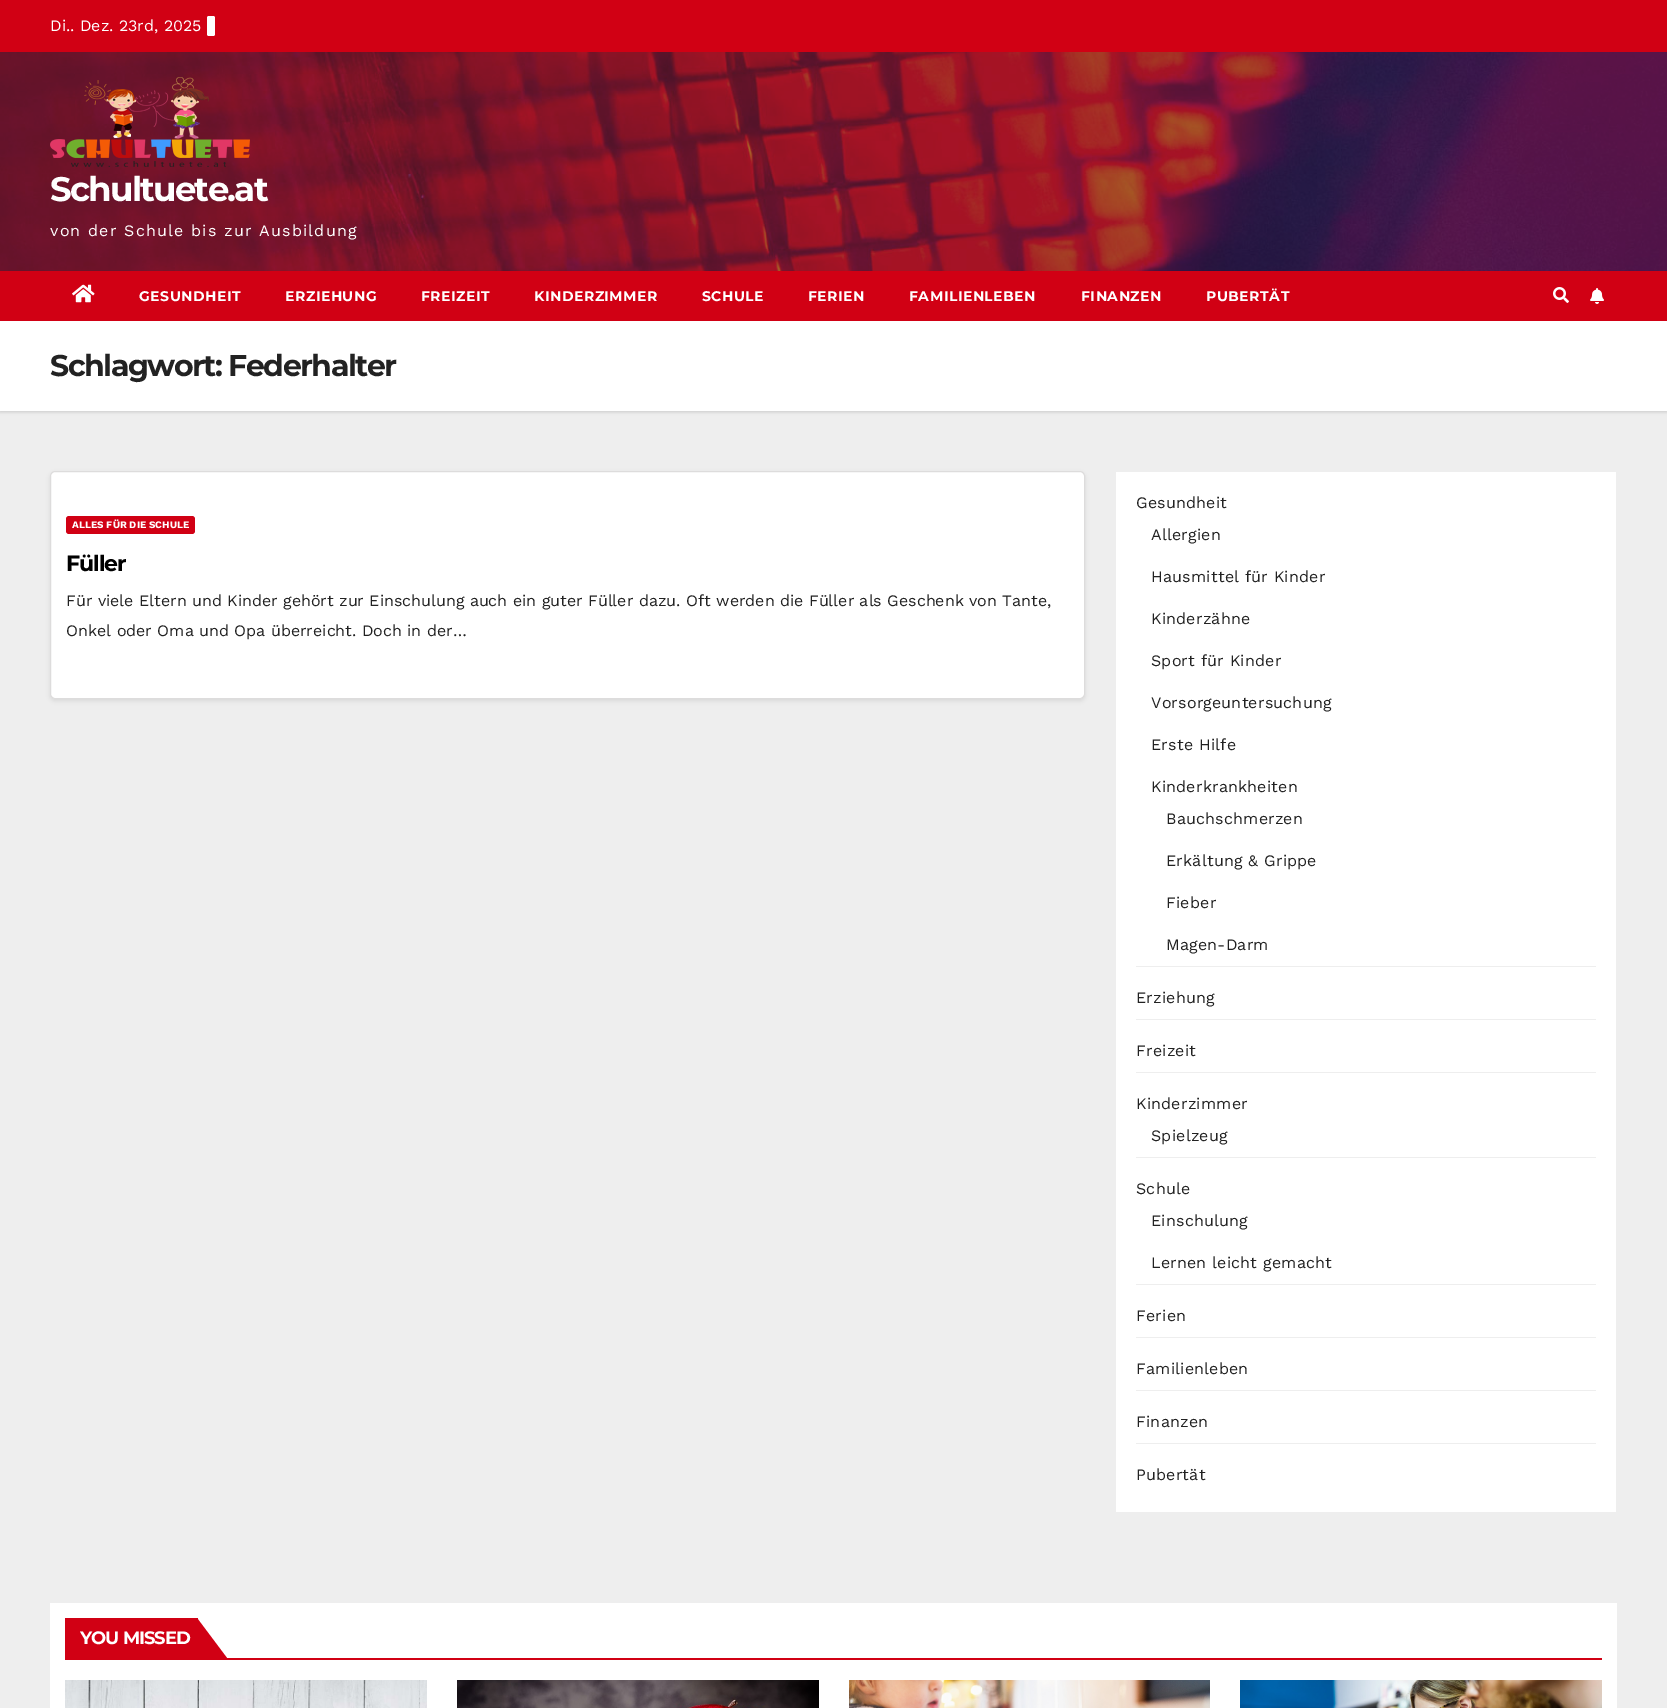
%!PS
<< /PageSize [1667 1708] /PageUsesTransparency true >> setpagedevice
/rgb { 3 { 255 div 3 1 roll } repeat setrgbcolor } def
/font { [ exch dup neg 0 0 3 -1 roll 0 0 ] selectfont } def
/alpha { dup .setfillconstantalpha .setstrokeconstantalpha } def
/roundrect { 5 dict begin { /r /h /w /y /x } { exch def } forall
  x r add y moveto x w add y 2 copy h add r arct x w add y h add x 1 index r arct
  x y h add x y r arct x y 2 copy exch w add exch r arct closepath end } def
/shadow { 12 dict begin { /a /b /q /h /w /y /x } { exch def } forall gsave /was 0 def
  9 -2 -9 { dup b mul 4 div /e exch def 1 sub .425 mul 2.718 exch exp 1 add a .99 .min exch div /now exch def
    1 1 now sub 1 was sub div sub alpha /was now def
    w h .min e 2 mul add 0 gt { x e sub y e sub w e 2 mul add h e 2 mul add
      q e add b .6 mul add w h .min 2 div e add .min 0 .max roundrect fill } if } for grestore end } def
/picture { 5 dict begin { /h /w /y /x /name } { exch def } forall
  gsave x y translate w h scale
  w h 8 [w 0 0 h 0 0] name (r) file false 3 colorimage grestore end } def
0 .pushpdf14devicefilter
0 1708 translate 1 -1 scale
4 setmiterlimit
238 238 238 rgb
0 0 1667 1708 rectfill
209 0 20 rgb
0 0 1667 52 rectfill
255 255 255 rgb
207 16 8 20 2 roundrect fill
(img/1.rgb) 0 52 1667 219 picture
(img/2.rgb) 50 77 200 90 picture
0 0 0 rgb
0 322 1667 90 0 1.5 0.15 shadow
209 0 20 rgb
0 271 1667 50 rectfill
(img/3.rgb) 72 284 23 19 picture
(img/4.rgb) 1553 287 16 16 picture
(img/5.rgb) 1590 288 14 16 picture
255 255 255 rgb
0 321 1667 90 rectfill
0 0 0 rgb
50 473 1035 228 5 2 0.08 shadow
255 255 255 rgb
50.5 471.5 1034 227 4.5 roundrect gsave fill grestore
221 220 220 rgb
stroke
209 0 20 rgb
66 516 129 18 3 roundrect fill
[
  [1116 472 500 1040 255 255 255]
  [1136 966 460 1 238 238 238]
  [1136 1019 460 1 238 238 238]
  [1136 1072 460 1 238 238 238]
  [1136 1157 460 1 238 238 238]
  [1136 1284 460 1 238 238 238]
  [1136 1337 460 1 238 238 238]
  [1136 1390 460 1 238 238 238]
  [1136 1443 460 1 238 238 238]
  [50 1603 1567 105 255 255 255]
  [65 1658 1537 2 209 0 20]
  [65 1618 133 40 209 0 20]
] { aload pop rgb rectfill } forall
197 1658 moveto 197 1618 lineto 227 1658 lineto closepath fill
(img/6.rgb) 65 1680 362 28 picture
(img/7.rgb) 457 1680 362 28 picture
(img/8.rgb) 849 1680 361 28 picture
(img/9.rgb) 1240 1680 362 28 picture
/WorkSans-Regular 16 font
255 255 255 rgb
50 31 moveto (Di.. Dez. 23rd, 2025) show
/Montserrat-Bold 34 font
50 201 moveto -1.75 0 (Schultuete.at) ashow
/WorkSans-Regular 16 font
50 236 moveto 1.2 0 (von der Schule bis zur Ausbildung) ashow
/Montserrat-Bold 14 font
139 301 moveto 0.5 0 (GESUNDHEIT) ashow
285 301 moveto 0.5 0 (ERZIEHUNG) ashow
421 301 moveto 0.5 0 (FREIZEIT) ashow
534 301 moveto 0.5 0 (KINDERZIMMER) ashow
702 301 moveto 0.5 0 (SCHULE) ashow
808 301 moveto 0.5 0 (FERIEN) ashow
909 301 moveto 0.5 0 (FAMILIENLEBEN) ashow
1081 301 moveto 0.5 0 (FINANZEN) ashow
1206 301 moveto 0.5 0 (PUBERTÄT) ashow
/Montserrat-Bold 30 font
34 34 34 rgb
50 376 moveto -1.5 0 (Schlagwort: Federhalter) ashow
/WorkSans-Bold 10 font
255 255 255 rgb
72 528 moveto (ALLES FÜR DIE SCHULE) show
/Montserrat-Bold 22 font
0 0 0 rgb
66 571 moveto -1 0 (Füller) ashow
/WorkSans-Regular 16 font
34 34 34 rgb
66 606 moveto (Für viele Eltern und Kinder gehört zur Einschulung auch ein guter Füller dazu. Oft werden die Füller als Geschenk von Tante,) show
66 636 moveto (Onkel oder Oma und Opa überreicht. Doch in der…) show
1136 508 moveto 0.2 0 (Gesundheit) ashow
1151 540 moveto 0.2 0 (Allergien) ashow
1151 582 moveto 0.2 0 (Hausmittel für Kinder) ashow
1151 624 moveto 0.2 0 (Kinderzähne) ashow
1151 666 moveto 0.2 0 (Sport für Kinder) ashow
1151 708 moveto 0.2 0 (Vorsorgeuntersuchung) ashow
1151 750 moveto 0.2 0 (Erste Hilfe) ashow
1151 792 moveto 0.2 0 (Kinderkrankheiten) ashow
1166 824 moveto 0.2 0 (Bauchschmerzen) ashow
1166 866 moveto 0.2 0 (Erkältung & Grippe) ashow
1166 908 moveto 0.2 0 (Fieber) ashow
1166 950 moveto 0.2 0 (Magen-Darm) ashow
1136 1003 moveto 0.2 0 (Erziehung) ashow
1136 1056 moveto 0.2 0 (Freizeit) ashow
1136 1109 moveto 0.2 0 (Kinderzimmer) ashow
1151 1141 moveto 0.2 0 (Spielzeug) ashow
1136 1194 moveto 0.2 0 (Schule) ashow
1151 1226 moveto 0.2 0 (Einschulung) ashow
1151 1268 moveto 0.2 0 (Lernen leicht gemacht) ashow
1136 1321 moveto 0.2 0 (Ferien) ashow
1136 1374 moveto 0.2 0 (Familienleben) ashow
1136 1427 moveto 0.2 0 (Finanzen) ashow
1136 1480 moveto 0.2 0 (Pubertät) ashow
/Montserrat-Bold 18 font
255 255 255 rgb
80 1644 moveto -1 0 (YOU MISSED) ashow
.poppdf14devicefilter showpage
